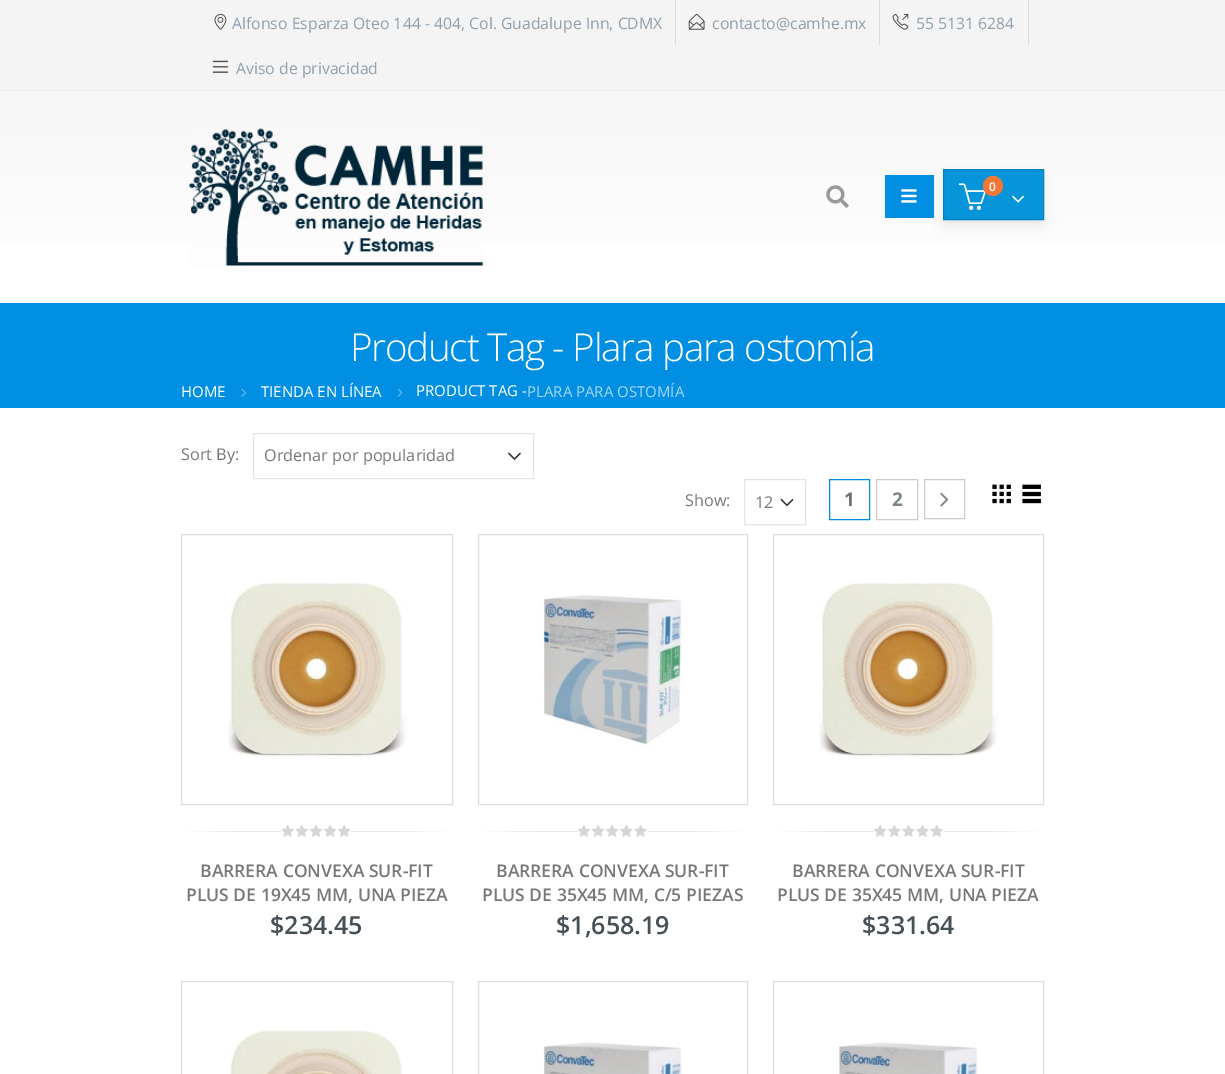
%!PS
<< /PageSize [1225 1074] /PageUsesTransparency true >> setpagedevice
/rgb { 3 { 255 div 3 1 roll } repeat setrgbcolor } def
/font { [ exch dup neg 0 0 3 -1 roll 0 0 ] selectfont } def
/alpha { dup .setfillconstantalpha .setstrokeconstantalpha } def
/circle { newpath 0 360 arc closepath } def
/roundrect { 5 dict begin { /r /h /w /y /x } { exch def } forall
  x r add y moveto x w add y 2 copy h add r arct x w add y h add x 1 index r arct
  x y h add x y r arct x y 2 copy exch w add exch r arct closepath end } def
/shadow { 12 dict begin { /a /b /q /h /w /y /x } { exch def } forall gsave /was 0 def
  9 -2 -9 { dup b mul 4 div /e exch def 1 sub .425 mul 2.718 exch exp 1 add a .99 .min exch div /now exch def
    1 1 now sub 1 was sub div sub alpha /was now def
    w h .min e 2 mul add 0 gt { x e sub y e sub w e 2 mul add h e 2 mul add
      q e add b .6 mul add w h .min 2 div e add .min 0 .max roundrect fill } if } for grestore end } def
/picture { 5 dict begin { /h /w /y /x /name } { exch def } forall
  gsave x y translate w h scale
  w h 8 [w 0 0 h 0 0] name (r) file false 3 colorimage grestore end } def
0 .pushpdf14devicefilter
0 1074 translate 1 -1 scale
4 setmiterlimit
255 255 255 rgb
0 0 1225 1074 rectfill
[
  [0 0 1225 90 244 244 244]
  [0 90 1225 1 237 237 237]
  [675 0 1 45 209 222 233]
] { aload pop rgb rectfill } forall
(img/1.rgb) 214 13 13 17 picture
879 0 1 45 rectfill
(img/2.rgb) 688 13 17 17 picture
1028 0 1 45 rectfill
(img/3.rgb) 892 13 17 17 picture
(img/4.rgb) 212 60 17 13 picture
gsave 0 91 moveto 1225 91 lineto 1225 244 lineto 0 244 lineto closepath clip newpath
<< /ShadingType 2 /ColorSpace /DeviceRGB /Coords [613 91 613 303] /Extend [true true] /Function << /FunctionType 2 /Domain [0 1] /C0 [0.965 0.965 0.965] /C1 [1 1 1] /N 1 >> >> shfill grestore
(img/5.rgb) 188 128 295 138 picture
(img/6.rgb) 826 185 23 23 picture
0 143 226 rgb
885 175 49 43 rectfill
(img/7.rgb) 901 189 16 14 picture
0 0 0 rgb
945 178 96 46 0 7 0.1 shadow
6 148 219 rgb
943.5 169.5 moveto 1043.5 169.5 lineto 1043.5 219.5 lineto 943.5 219.5 lineto closepath gsave fill grestore
0 130 194 rgb
stroke
(img/8.rgb) 958 183 28 27 picture
241 119 52 rgb
993 186 10 circle fill
(img/9.rgb) 1012 195 12 8 picture
0 143 226 rgb
0 303 1225 105 rectfill
(img/10.rgb) 241 388 6 9 picture
(img/11.rgb) 397 388 6 9 picture
(img/12.rgb) 508 452 13 9 picture
228 228 228 rgb
253.5 433.5 280 45 rectstroke
(img/13.rgb) 780 498 14 9 picture
744.5 479.5 61 45 rectstroke
0 143 226 rgb
829.5 479.5 40 40 rectstroke
204 204 204 rgb
876.5 479.5 41 40 rectstroke
924.5 479.5 40 39 rectstroke
(img/14.rgb) 940 492 9 15 picture
(img/15.rgb) 992 484 19 20 picture
(img/16.rgb) 1022 484 19 20 picture
221 221 221 rgb
181.5 534.5 271 270 rectstroke
(img/17.rgb) 228 582 180 176 picture
gsave 181 831 moveto 281 831 lineto 281 832 lineto 181 832 lineto closepath clip newpath
<< /ShadingType 2 /ColorSpace /DeviceRGB /Coords [281 832 181 832] /Extend [true true] /Function << /FunctionType 3 /Domain [0 1] /Functions [<< /FunctionType 2 /Domain [0 1] /C0 [0.902 0.902 0.902] /C1 [0.902 0.902 0.902] /N 1 >> << /FunctionType 2 /Domain [0 1] /C0 [0.902 0.902 0.902] /C1 [1 1 1] /N 1 >>] /Bounds [0.4] /Encode [0 1 0 1] >> >> shfill grestore
(img/18.rgb) 281 825 70 12 picture
gsave 351 831 moveto 453 831 lineto 453 832 lineto 351 832 lineto closepath clip newpath
<< /ShadingType 2 /ColorSpace /DeviceRGB /Coords [351 832 453 832] /Extend [true true] /Function << /FunctionType 3 /Domain [0 1] /Functions [<< /FunctionType 2 /Domain [0 1] /C0 [0.902 0.902 0.902] /C1 [0.902 0.902 0.902] /N 1 >> << /FunctionType 2 /Domain [0 1] /C0 [0.902 0.902 0.902] /C1 [1 1 1] /N 1 >>] /Bounds [0.4] /Encode [0 1 0 1] >> >> shfill grestore
478.5 534.5 269 270 rectstroke
(img/19.rgb) 540 594 144 153 picture
gsave 478 831 moveto 578 831 lineto 578 832 lineto 478 832 lineto closepath clip newpath
<< /ShadingType 2 /ColorSpace /DeviceRGB /Coords [578 832 478 832] /Extend [true true] /Function << /FunctionType 3 /Domain [0 1] /Functions [<< /FunctionType 2 /Domain [0 1] /C0 [0.902 0.902 0.902] /C1 [0.902 0.902 0.902] /N 1 >> << /FunctionType 2 /Domain [0 1] /C0 [0.902 0.902 0.902] /C1 [1 1 1] /N 1 >>] /Bounds [0.4] /Encode [0 1 0 1] >> >> shfill grestore
(img/20.rgb) 578 825 69 12 picture
gsave 648 831 moveto 748 831 lineto 748 832 lineto 648 832 lineto closepath clip newpath
<< /ShadingType 2 /ColorSpace /DeviceRGB /Coords [648 832 748 832] /Extend [true true] /Function << /FunctionType 3 /Domain [0 1] /Functions [<< /FunctionType 2 /Domain [0 1] /C0 [0.902 0.902 0.902] /C1 [0.902 0.902 0.902] /N 1 >> << /FunctionType 2 /Domain [0 1] /C0 [0.902 0.902 0.902] /C1 [1 1 1] /N 1 >>] /Bounds [0.4] /Encode [0 1 0 1] >> >> shfill grestore
773.5 534.5 270 270 rectstroke
(img/21.rgb) 819 582 179 176 picture
gsave 773 831 moveto 874 831 lineto 874 832 lineto 773 832 lineto closepath clip newpath
<< /ShadingType 2 /ColorSpace /DeviceRGB /Coords [874 832 773 832] /Extend [true true] /Function << /FunctionType 3 /Domain [0 1] /Functions [<< /FunctionType 2 /Domain [0 1] /C0 [0.902 0.902 0.902] /C1 [0.902 0.902 0.902] /N 1 >> << /FunctionType 2 /Domain [0 1] /C0 [0.902 0.902 0.902] /C1 [1 1 1] /N 1 >>] /Bounds [0.4] /Encode [0 1 0 1] >> >> shfill grestore
(img/22.rgb) 874 825 69 12 picture
gsave 944 831 moveto 1044 831 lineto 1044 832 lineto 944 832 lineto closepath clip newpath
<< /ShadingType 2 /ColorSpace /DeviceRGB /Coords [944 832 1044 832] /Extend [true true] /Function << /FunctionType 3 /Domain [0 1] /Functions [<< /FunctionType 2 /Domain [0 1] /C0 [0.902 0.902 0.902] /C1 [0.902 0.902 0.902] /N 1 >> << /FunctionType 2 /Domain [0 1] /C0 [0.902 0.902 0.902] /C1 [1 1 1] /N 1 >>] /Bounds [0.4] /Encode [0 1 0 1] >> >> shfill grestore
181.5 981.5 271 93 rectstroke
(img/23.rgb) 230 1030 172 44 picture
478.5 981.5 269 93 rectstroke
(img/24.rgb) 542 1042 141 32 picture
773.5 981.5 270 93 rectstroke
(img/25.rgb) 837 1042 142 32 picture
/OpenSans-Regular 15.8 font
142 160 174 rgb
[
  [(Alfonso Esparza Oteo 144 - 404, Col. Guadalupe Inn, CDMX) 232 29]
  [(contacto@camhe.mx) 712 29]
  [(55 5131 6284) 916 29]
  [(Aviso de privacidad) 236 74]
] { aload pop moveto show } forall
/OpenSans-SemiBold 12 font
255 255 255 rgb
989 191 moveto (0) show
/OpenSans-Light 38.5 font
350 361 moveto -1.25 0 (Product Tag - Plara para ostomía) ashow
/OpenSans-Regular 15 font
[
  [(HOME) 181 397]
  [(TIENDA EN LÍNEA) 261 397]
  [(PRODUCT TAG -) 416 396]
] { aload pop moveto show } forall
166 216 245 rgb
527 397 moveto (PLARA PARA OSTOMÍA) show
/OpenSans-Regular 16.25 font
119 119 119 rgb
[
  [(Sort By:) 181 460]
  [(Ordenar por popularidad) 264 461]
  [(Show:) 685 506]
  [(12) 755 508]
] { aload pop moveto show } forall
/OpenSans-Bold 19 font
112 111 108 rgb
844 506 moveto (1) show
123 133 138 rgb
892 506 moveto (2) show
/OpenSans-SemiBold 17.5 font
119 119 119 rgb
200 877 moveto (BARRERA CONVEXA SUR-FIT) show
186 901 moveto (PLUS DE 19X45 MM, UNA PIEZA) show
/OpenSans-SemiBold 25 font
70 81 87 rgb
270 934 moveto ($234.45) show
/OpenSans-SemiBold 17.5 font
119 119 119 rgb
496 877 moveto (BARRERA CONVEXA SUR-FIT) show
482 901 moveto (PLUS DE 35X45 MM, C/5 PIEZAS) show
/OpenSans-SemiBold 25 font
70 81 87 rgb
556 934 moveto ($1,658.19) show
/OpenSans-SemiBold 17.5 font
119 119 119 rgb
792 877 moveto (BARRERA CONVEXA SUR-FIT) show
777 901 moveto (PLUS DE 35X45 MM, UNA PIEZA) show
/OpenSans-SemiBold 25 font
70 81 87 rgb
862 934 moveto ($331.64) show
.poppdf14devicefilter showpage
